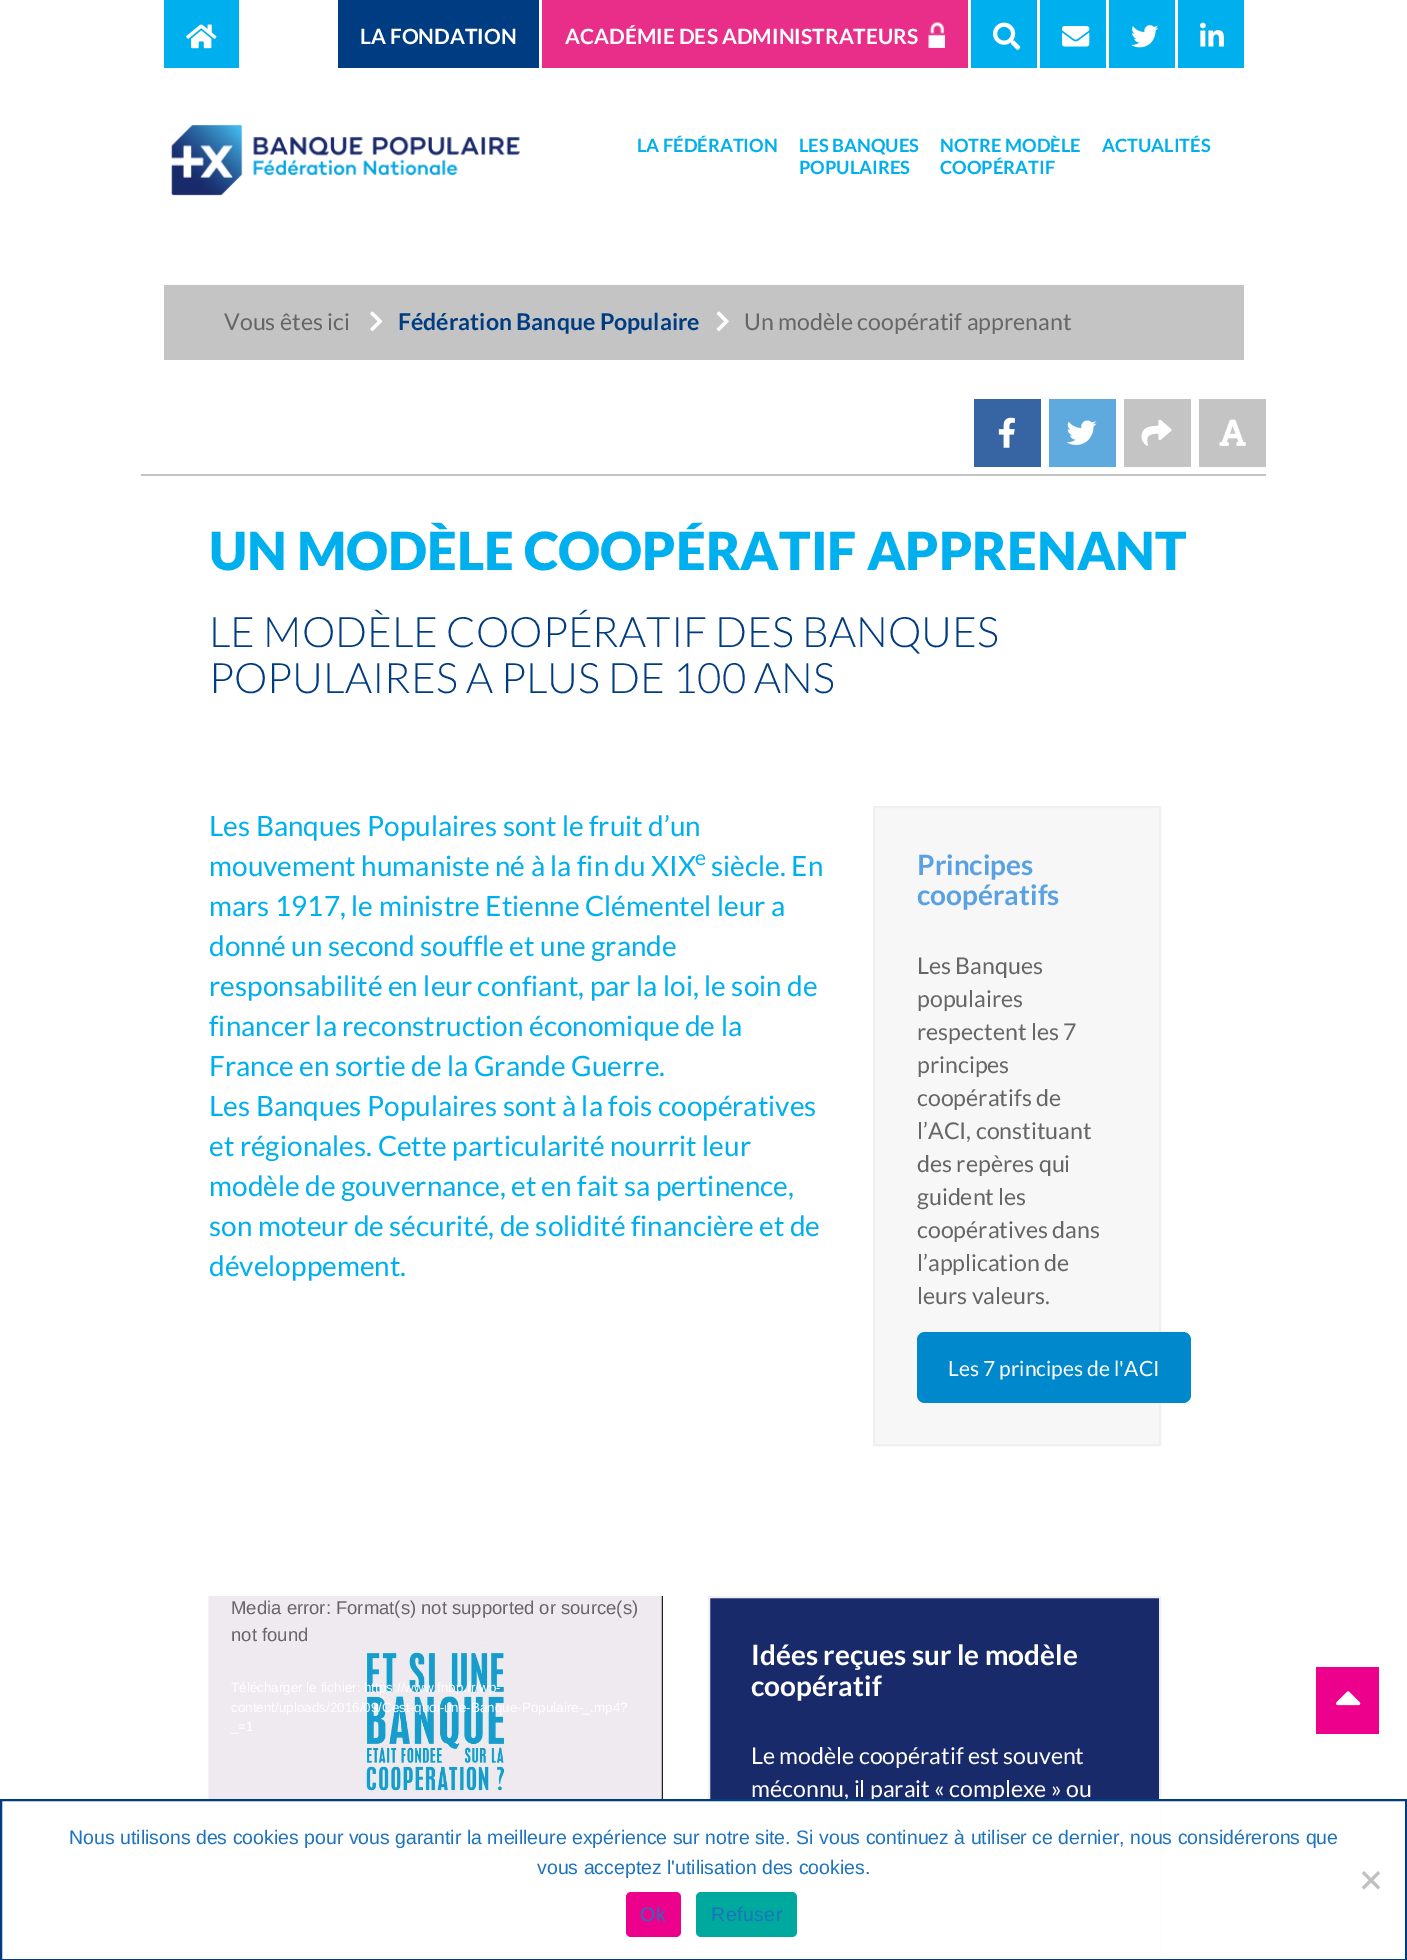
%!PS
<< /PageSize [1407 1960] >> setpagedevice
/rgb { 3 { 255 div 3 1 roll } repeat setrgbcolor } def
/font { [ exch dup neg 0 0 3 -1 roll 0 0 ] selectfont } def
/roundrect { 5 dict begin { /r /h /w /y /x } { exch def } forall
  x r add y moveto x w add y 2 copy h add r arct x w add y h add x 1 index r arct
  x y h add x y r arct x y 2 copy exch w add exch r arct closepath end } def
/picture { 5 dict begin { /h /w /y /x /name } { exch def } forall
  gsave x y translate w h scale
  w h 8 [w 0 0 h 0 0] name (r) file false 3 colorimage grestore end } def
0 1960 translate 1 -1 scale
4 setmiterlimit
255 255 255 rgb
0 0 1407 1960 rectfill
0 175 237 rgb
164 0 75 68 rectfill
(img/1.rgb) 186 24 31 25 picture
0 60 130 rgb
338 0 201 68 rectfill
232 46 137 rgb
542 0 426 68 rectfill
(img/2.rgb) 928 22 17 26 picture
0 175 237 rgb
971 0 66 68 rectfill
(img/3.rgb) 993 22 28 28 picture
1040 0 66 68 rectfill
(img/4.rgb) 1062 26 28 21 picture
1109 0 66 68 rectfill
(img/5.rgb) 1131 25 28 23 picture
1178 0 66 68 rectfill
(img/6.rgb) 1200 22 24 25 picture
(img/7.rgb) 171 125 349 71 picture
196 196 196 rgb
164 285 1080 75 rectfill
(img/8.rgb) 370 311 13 21 picture
(img/9.rgb) 716 311 13 21 picture
55 101 163 rgb
974 399 67 68 rectfill
(img/10.rgb) 998 417 17 31 picture
94 169 221 rgb
1049 399 67 68 rectfill
(img/11.rgb) 1066 420 31 25 picture
196 196 196 rgb
1124 399 67 68 rectfill
(img/12.rgb) 1141 419 31 27 picture
1199 399 67 68 rectfill
(img/13.rgb) 1219 419 27 27 picture
141 474 1125 2 rectfill
247 247 247 rgb
874 807 moveto 1160 807 lineto 1160 1445 lineto 874 1445 lineto closepath gsave fill grestore
240 240 240 rgb
2 setlinewidth
stroke
0 136 204 rgb
917 1332 274 71 8 roundrect fill
34 34 34 rgb
661 1596 2 203 rectfill
(img/14.rgb) 208 1596 454 203 picture
(img/15.rgb) 208 1596 454 203 picture
25 42 107 rgb
710 1598 449 201 rectfill
240 240 240 rgb
709 1597 451 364 rectstroke
236 0 140 rgb
1316 1667 63 67 rectfill
(img/16.rgb) 1336 1691 25 15 picture
255 255 255 rgb
708 1801 453 158 rectfill
/Lato-Bold 21 font
360 44 moveto (LA FONDATION) show
565 44 moveto (ACADÉMIE DES ADMINISTRATEURS) show
/Lato-Bold 18.25 font
0 175 237 rgb
[
  [(LA FÉDÉRATION) 637 152]
  [(LES BANQUES) 799 152]
  [(POPULAIRES) 799 174]
  [(NOTRE MODÈLE) 940 152]
  [(COOPÉRATIF) 940 174]
  [(ACTUALITÉS) 1102 152]
] { aload pop moveto show } forall
/Lato-Regular 23.1 font
102 102 102 rgb
224 330 moveto (Vous êtes ici) show
/Lato-Bold 23.1 font
0 60 130 rgb
398 330 moveto (Fédération Banque Populaire) show
/Lato-Regular 23.1 font
102 102 102 rgb
744 330 moveto (Un modèle coopératif apprenant) show
/Lato-Black 52.5 font
0 175 237 rgb
209 570 moveto (UN MODÈLE COOPÉRATIF APPRENANT) show
/Lato-Light 42 font
0 60 130 rgb
209 647 moveto (LE MODÈLE COOPÉRATIF DES BANQUES) show
209 693 moveto (POPULAIRES A PLUS DE 100 ANS) show
/Lato-Regular 28 font
0 175 237 rgb
209 836 moveto (Les Banques Populaires sont le fruit d’un) show
209 876 moveto (mouvement humaniste né à la fin du XIX) show
/Lato-Regular 21 font
695 865 moveto (e) show
/Lato-Regular 28 font
[
  [(siècle. En) 711 876]
  [(mars 1917, le ministre Etienne Clémentel leur a) 209 916]
  [(donné un second souffle et une grande) 209 956]
  [(responsabilité en leur confiant, par la loi, le soin de) 209 996]
  [(financer la reconstruction économique de la) 209 1036]
  [(France en sortie de la Grande Guerre.) 209 1076]
  [(Les Banques Populaires sont à la fois coopératives) 209 1116]
  [(et régionales. Cette particularité nourrit leur) 209 1156]
  [(modèle de gouvernance, et en fait sa pertinence,) 209 1196]
  [(son moteur de sécurité, de solidité financière et de) 209 1236]
  [(développement.) 209 1276]
] { aload pop moveto show } forall
/Lato-Bold 28 font
90 161 227 rgb
917 875 moveto (Principes) show
917 905 moveto (coopératifs) show
/Lato-Regular 23.1 font
102 102 102 rgb
[
  [(Les Banques) 917 974]
  [(populaires) 917 1007]
  [(respectent les 7) 917 1040]
  [(principes) 917 1073]
  [(coopératifs de) 917 1106]
  [(l’ACI, constituant) 917 1139]
  [(des repères qui) 917 1172]
  [(guident les) 917 1205]
  [(coopératives dans) 917 1238]
  [(l’application de) 917 1271]
  [(leurs valeurs.) 917 1304]
] { aload pop moveto show } forall
/Lato-Regular 21 font
255 255 255 rgb
948 1376 moveto (Les 7 principes de l'ACI) show
/LiberationSans-Regular 18.5 font
102 102 102 rgb
231 1614 moveto (Media error: Format\(s\) not supported or source\(s\)) show
231 1641 moveto (not found) show
/LiberationSans-Regular 13.45 font
255 255 255 rgb
[
  [(Télécharger le fichier: https://www.fnbp.fr/wp-) 231 1692]
  [(content/uploads/2016/09/Cest-quoi-une-Banque-Populaire-_.mp4?) 231 1712]
  [(_=1) 231 1731]
] { aload pop moveto show } forall
/Lato-Bold 28 font
751 1665 moveto (Idées reçues sur le modèle) show
751 1696 moveto (coopératif) show
/Lato-Regular 23.1 font
751 1764 moveto (Le modèle coopératif est souvent) show
751 1797 moveto (méconnu, il parait « complexe » ou) show
0 60 130 rgb
1 1800 1405 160 rectstroke
/LiberationSans-Regular 19.5 font
30 115 190 rgb
69 1844 moveto (Nous utilisons des cookies pour vous garantir la meilleure expérience sur notre site. Si vous continuez à utiliser ce dernier, nous considérerons que) show
537 1874 moveto (vous acceptez l'utilisation des cookies.) show
192 192 192 rgb
1378 1871 moveto 1380 1873.5 lineto 1364 1889.5 lineto 1362 1887 lineto closepath fill
1362 1873.5 moveto 1364 1871 lineto 1380 1887 lineto 1378 1889.5 lineto closepath fill
236 0 140 rgb
626 1892 55 45 5 roundrect fill
30 115 190 rgb
640 1921 moveto 0.5 0 (Ok) ashow
0 169 157 rgb
696 1892 101 45 5 roundrect fill
30 115 190 rgb
711 1921 moveto 0.5 0 (Refuser) ashow
showpage
